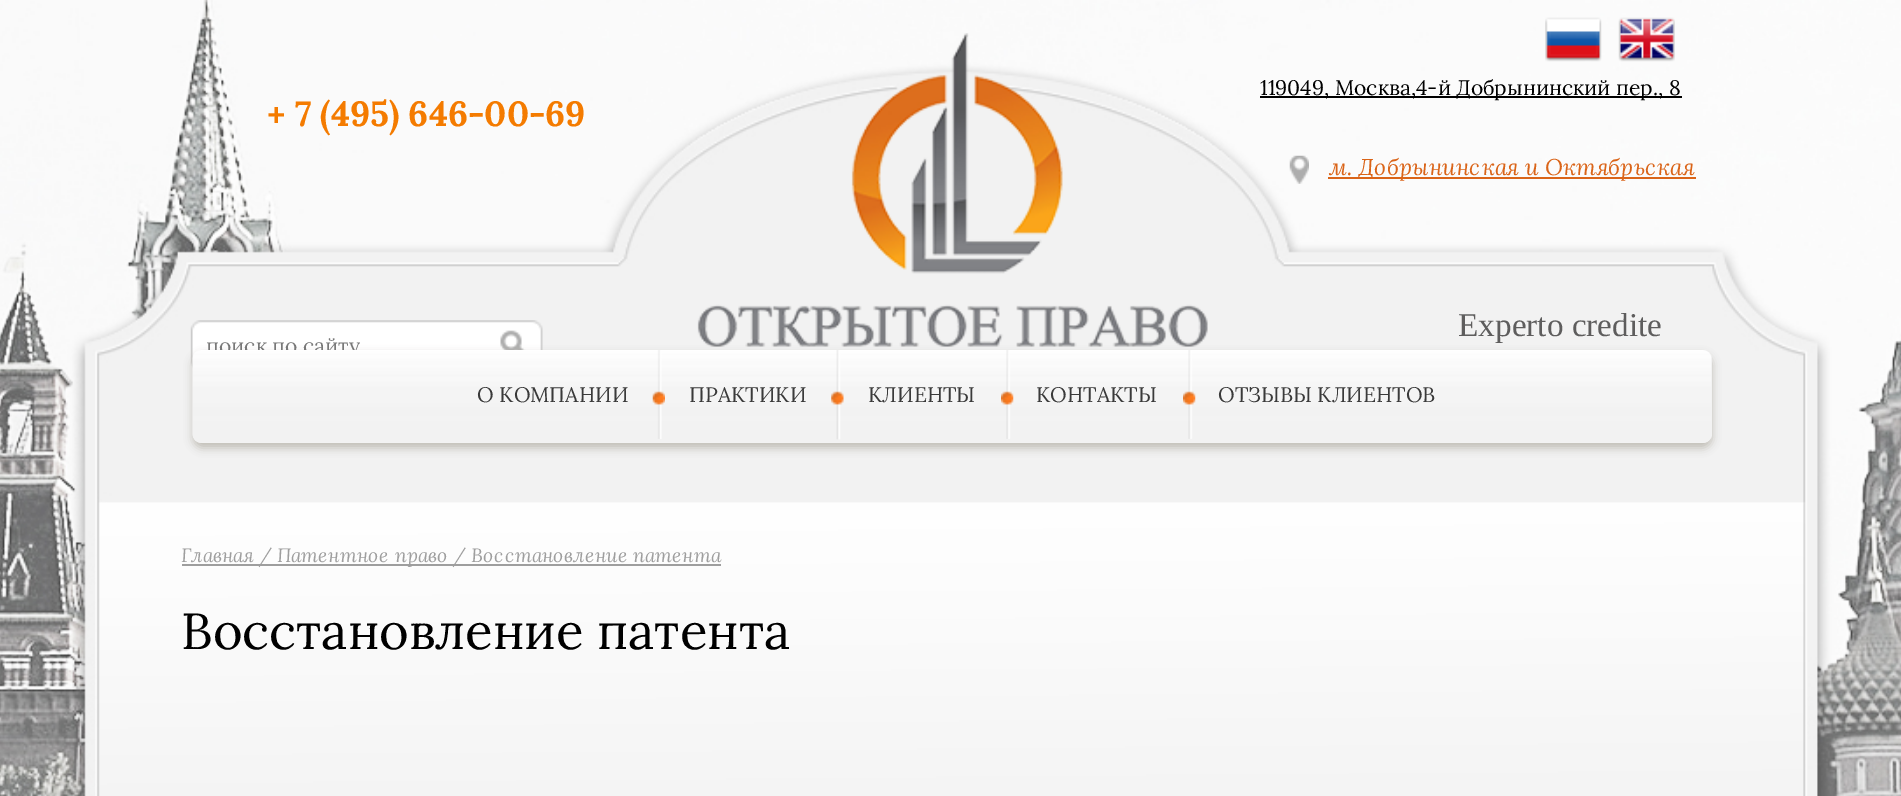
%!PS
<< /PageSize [1901 796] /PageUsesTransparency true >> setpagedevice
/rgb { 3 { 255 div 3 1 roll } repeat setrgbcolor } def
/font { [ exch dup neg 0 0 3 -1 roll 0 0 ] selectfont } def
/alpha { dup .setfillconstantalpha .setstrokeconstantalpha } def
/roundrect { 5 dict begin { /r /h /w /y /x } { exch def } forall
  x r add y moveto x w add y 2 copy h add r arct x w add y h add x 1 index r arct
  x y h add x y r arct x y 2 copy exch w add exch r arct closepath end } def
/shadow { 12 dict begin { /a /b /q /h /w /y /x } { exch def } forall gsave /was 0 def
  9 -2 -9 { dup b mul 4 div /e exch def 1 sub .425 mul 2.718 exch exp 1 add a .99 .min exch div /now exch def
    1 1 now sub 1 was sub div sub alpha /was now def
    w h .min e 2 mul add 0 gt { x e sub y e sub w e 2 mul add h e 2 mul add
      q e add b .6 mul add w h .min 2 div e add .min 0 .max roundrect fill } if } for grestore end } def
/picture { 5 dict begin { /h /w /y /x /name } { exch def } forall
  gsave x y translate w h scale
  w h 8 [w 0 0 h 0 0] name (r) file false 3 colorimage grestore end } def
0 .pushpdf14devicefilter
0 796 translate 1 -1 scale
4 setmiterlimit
255 255 255 rgb
0 0 1901 796 rectfill
(img/1.rgb) 0 0 1901 796 picture
(img/2.rgb) 697 33 511 314 picture
(img/3.rgb) 1545 17 57 45 picture
(img/4.rgb) 1618 17 57 45 picture
0 0 0 rgb
1260 96 422 2 rectfill
(img/5.rgb) 1289 155 20 29 picture
218 100 24 rgb
1328 177 368 2 rectfill
(img/6.rgb) 190 320 353 48 picture
192 189 181 rgb
193 355 1519 93 9 4.5 1 shadow
158 158 158 rgb
182 564 539 2 rectfill
/Lora-Regular 21 font
0 0 0 rgb
1260 95 moveto (119049, Москва,4-й Добрынинский пер., 8) show
/Lora-Bold 35 font
244 123 0 rgb
267 126 moveto (+ 7 \(495\) 646-00-69) show
/Lora-Italic 22.75 font
218 100 24 rgb
1329 175 moveto (м. Добрынинская и Октябрьская) show
/LiberationSerif-Regular 33.25 font
94 93 93 rgb
1458 336 moveto (Experto credite) show
/Lora-Regular 21 font
120 120 120 rgb
206 353 moveto (поиск по сайту) show
242 242 242 rgb
193 350 1519 93 9 roundrect fill
(img/7.rgb) 192 350 1519 93 picture
58 58 58 rgb
477 402 moveto (О КОМПАНИИ) show
(img/8.rgb) 652 350 13 89 picture
689 402 moveto (ПРАКТИКИ) show
(img/9.rgb) 831 350 13 90 picture
868 402 moveto (КЛИЕНТЫ) show
(img/10.rgb) 1001 350 13 89 picture
1036 402 moveto (КОНТАКТЫ) show
(img/10.rgb) 1183 350 13 89 picture
1218 402 moveto (ОТЗЫВЫ КЛИЕНТОВ) show
/Lora-Italic 19.25 font
158 158 158 rgb
181 562 moveto (Главная / Патентное право / Восстановление патента) show
/Lora-Regular 50.75 font
0 0 0 rgb
181 649 moveto (Восстановление патента) show
.poppdf14devicefilter showpage
